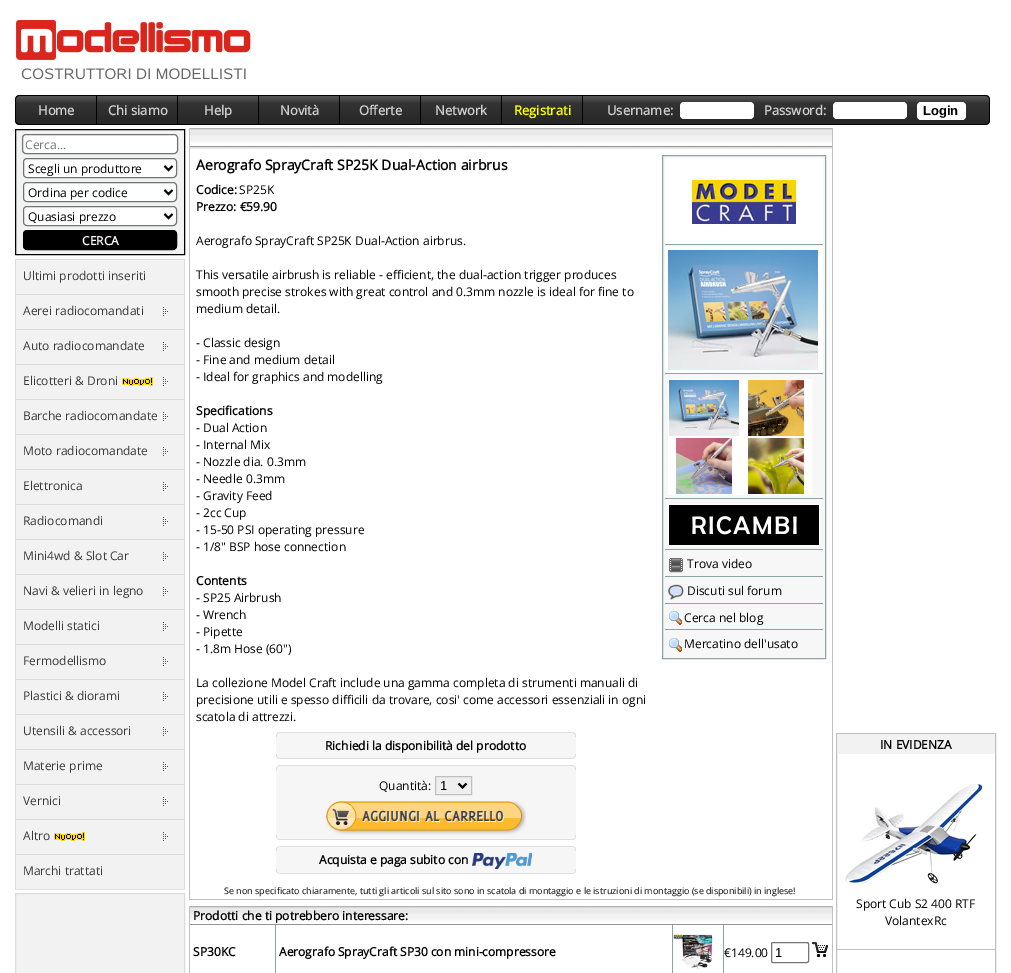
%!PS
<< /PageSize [1011 973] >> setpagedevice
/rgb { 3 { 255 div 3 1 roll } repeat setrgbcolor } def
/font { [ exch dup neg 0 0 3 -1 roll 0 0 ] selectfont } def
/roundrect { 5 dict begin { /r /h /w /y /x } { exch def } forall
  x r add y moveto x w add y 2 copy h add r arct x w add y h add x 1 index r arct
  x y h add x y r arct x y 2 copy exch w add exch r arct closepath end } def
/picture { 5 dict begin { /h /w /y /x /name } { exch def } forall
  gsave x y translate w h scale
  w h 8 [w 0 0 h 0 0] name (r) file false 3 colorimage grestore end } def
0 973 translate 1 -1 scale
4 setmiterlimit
255 255 255 rgb
0 0 1011 973 rectfill
(img/1.rgb) 16 19 236 61 picture
0 0 0 rgb
15 95 975 30 4 roundrect fill
(img/2.rgb) 15 95 975 30 picture
51 51 51 rgb
20 96 moveto 96 96 lineto 96 124 lineto 20 124 lineto 18 124 16 122 16 120 curveto 16 100 lineto 16 98 18 96 20 96 curveto closepath fill
(img/3.rgb) 16 96 80 28 picture
97 96 80 28 rectfill
(img/4.rgb) 97 96 80 28 picture
178 96 80 28 rectfill
(img/4.rgb) 178 96 80 28 picture
259 96 80 28 rectfill
(img/4.rgb) 259 96 80 28 picture
340 96 80 28 rectfill
(img/4.rgb) 340 96 80 28 picture
421 96 80 28 rectfill
(img/4.rgb) 421 96 80 28 picture
502 96 80 28 rectfill
(img/4.rgb) 502 96 80 28 picture
583 96 moveto 985 96 lineto 987 96 989 98 989 100 curveto 989 120 lineto 989 122 987 124 985 124 curveto 583 124 lineto closepath fill
(img/5.rgb) 583 96 406 28 picture
255 255 255 rgb
680 102 74 17 4 roundrect fill
833 102 74 17 4 roundrect fill
917 102 49 18 4 roundrect fill
242 242 242 rgb
15.5 129.5 moveto 184.5 129.5 lineto 184.5 254.5 lineto 15.5 254.5 lineto closepath gsave fill grestore
0 0 0 rgb
stroke
255 255 255 rgb
22.5 134.5 155 19 3.5 roundrect gsave fill grestore
112 115 119 rgb
stroke
255 255 255 rgb
23.5 158.5 153 19 3.5 roundrect gsave fill grestore
112 115 119 rgb
stroke
0 0 0 rgb
2 setlinewidth
164.5 166 moveto 168.5 170 lineto 172.5 166 lineto stroke
255 255 255 rgb
23.5 182.5 153 19 3.5 roundrect gsave fill grestore
112 115 119 rgb
1 setlinewidth
stroke
0 0 0 rgb
2 setlinewidth
164.5 190 moveto 168.5 194 lineto 172.5 190 lineto stroke
255 255 255 rgb
23.5 206.5 153 19 3.5 roundrect gsave fill grestore
112 115 119 rgb
1 setlinewidth
stroke
0 0 0 rgb
2 setlinewidth
164.5 214 moveto 168.5 218 lineto 172.5 214 lineto stroke
23.5 230.5 153 19 3.5 roundrect gsave fill grestore
1 setlinewidth
stroke
[
  [15 889 170 1 227 227 227]
  [16 260 168 34 242 242 242]
  [15 259 170 1 220 220 220]
  [184 259 1 35 220 220 220]
  [15 259 1 35 220 220 220]
  [16 295 168 34 242 242 242]
  [15 294 170 1 220 220 220]
  [184 294 1 35 220 220 220]
  [15 294 1 35 220 220 220]
] { aload pop rgb rectfill } forall
(img/6.rgb) 163 307 5 9 picture
[
  [16 330 168 34 242 242 242]
  [15 329 170 1 220 220 220]
  [184 329 1 35 220 220 220]
  [15 329 1 35 220 220 220]
] { aload pop rgb rectfill } forall
(img/6.rgb) 163 342 5 9 picture
[
  [16 365 168 34 242 242 242]
  [15 364 170 1 220 220 220]
  [184 364 1 35 220 220 220]
  [15 364 1 35 220 220 220]
] { aload pop rgb rectfill } forall
(img/7.rgb) 122 377 31 9 picture
(img/6.rgb) 163 377 5 9 picture
[
  [16 400 168 34 242 242 242]
  [15 399 170 1 220 220 220]
  [184 399 1 35 220 220 220]
  [15 399 1 35 220 220 220]
] { aload pop rgb rectfill } forall
(img/6.rgb) 163 412 5 9 picture
[
  [16 435 168 34 242 242 242]
  [15 434 170 1 220 220 220]
  [184 434 1 35 220 220 220]
  [15 434 1 35 220 220 220]
] { aload pop rgb rectfill } forall
(img/6.rgb) 163 447 5 9 picture
[
  [16 470 168 34 242 242 242]
  [15 469 170 1 220 220 220]
  [184 469 1 35 220 220 220]
  [15 469 1 35 220 220 220]
] { aload pop rgb rectfill } forall
(img/6.rgb) 163 482 5 9 picture
[
  [16 505 168 34 242 242 242]
  [15 504 170 1 220 220 220]
  [184 504 1 35 220 220 220]
  [15 504 1 35 220 220 220]
] { aload pop rgb rectfill } forall
(img/6.rgb) 163 517 5 9 picture
[
  [16 540 168 34 242 242 242]
  [15 539 170 1 220 220 220]
  [184 539 1 35 220 220 220]
  [15 539 1 35 220 220 220]
] { aload pop rgb rectfill } forall
(img/6.rgb) 163 552 5 9 picture
[
  [16 575 168 34 242 242 242]
  [15 574 170 1 220 220 220]
  [184 574 1 35 220 220 220]
  [15 574 1 35 220 220 220]
] { aload pop rgb rectfill } forall
(img/6.rgb) 163 587 5 9 picture
[
  [16 610 168 34 242 242 242]
  [15 609 170 1 220 220 220]
  [184 609 1 35 220 220 220]
  [15 609 1 35 220 220 220]
] { aload pop rgb rectfill } forall
(img/6.rgb) 163 622 5 9 picture
[
  [16 645 168 34 242 242 242]
  [15 644 170 1 220 220 220]
  [184 644 1 35 220 220 220]
  [15 644 1 35 220 220 220]
] { aload pop rgb rectfill } forall
(img/6.rgb) 163 657 5 9 picture
[
  [16 680 168 34 242 242 242]
  [15 679 170 1 220 220 220]
  [184 679 1 35 220 220 220]
  [15 679 1 35 220 220 220]
] { aload pop rgb rectfill } forall
(img/6.rgb) 163 692 5 9 picture
[
  [16 715 168 34 242 242 242]
  [15 714 170 1 220 220 220]
  [184 714 1 35 220 220 220]
  [15 714 1 35 220 220 220]
] { aload pop rgb rectfill } forall
(img/6.rgb) 163 727 5 9 picture
[
  [16 750 168 34 242 242 242]
  [15 749 170 1 220 220 220]
  [184 749 1 35 220 220 220]
  [15 749 1 35 220 220 220]
] { aload pop rgb rectfill } forall
(img/6.rgb) 163 762 5 9 picture
[
  [16 785 168 34 242 242 242]
  [15 784 170 1 220 220 220]
  [184 784 1 35 220 220 220]
  [15 784 1 35 220 220 220]
] { aload pop rgb rectfill } forall
(img/6.rgb) 163 797 5 9 picture
[
  [16 820 168 34 242 242 242]
  [15 819 170 1 220 220 220]
  [184 819 1 35 220 220 220]
  [15 819 1 35 220 220 220]
] { aload pop rgb rectfill } forall
(img/7.rgb) 54 832 31 9 picture
(img/6.rgb) 163 832 5 9 picture
[
  [16 855 168 34 242 242 242]
  [15 854 170 1 220 220 220]
  [184 854 1 35 220 220 220]
  [15 854 1 35 220 220 220]
] { aload pop rgb rectfill } forall
242 242 242 rgb
15.5 893.5 moveto 184.5 893.5 lineto 184.5 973.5 lineto 15.5 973.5 lineto closepath gsave fill grestore
220 220 220 rgb
stroke
[
  [832 128 1 772 192 192 192]
  [189 899 644 1 192 192 192]
  [189 128 1 772 192 192 192]
] { aload pop rgb rectfill } forall
(img/8.rgb) 190 128 642 21 picture
(img/9.rgb) 276 732 300 5 picture
246 246 246 rgb
276 737 300 17 rectfill
(img/10.rgb) 276 754 300 5 picture
(img/9.rgb) 276 765 300 5 picture
276 770 300 65 rectfill
239 239 239 rgb
435.5 776.5 moveto 471.5 776.5 lineto 471.5 794.5 lineto 435.5 794.5 lineto closepath gsave fill grestore
192 192 192 rgb
stroke
0 0 0 rgb
2 setlinewidth
458.5 783.5 moveto 462.5 787.5 lineto 466.5 783.5 lineto stroke
(img/11.rgb) 326 801 200 34 picture
(img/10.rgb) 276 835 300 5 picture
(img/9.rgb) 276 846 300 5 picture
246 246 246 rgb
276 851 300 18 rectfill
(img/12.rgb) 472 853 60 16 picture
(img/10.rgb) 276 869 300 5 picture
247 247 247 rgb
662.5 155.5 moveto 825.5 155.5 lineto 825.5 658.5 lineto 662.5 658.5 lineto closepath gsave fill grestore
139 165 163 rgb
1 setlinewidth
stroke
255 255 255 rgb
665 158 158 86 rectfill
139 165 163 rgb
665 244 158 1 rectfill
(img/13.rgb) 692 177 104 48 picture
255 255 255 rgb
665 247 158 126 rectfill
139 165 163 rgb
665 373 158 1 rectfill
(img/14.rgb) 668 250 150 120 picture
665 498 158 1 rectfill
255 255 255 rgb
668.5 379.5 71 57 rectstroke
740.5 379.5 71 57 rectstroke
(img/15.rgb) 669 380 70 56 picture
(img/16.rgb) 741 380 70 56 picture
668.5 437.5 71 57 rectstroke
740.5 437.5 71 57 rectstroke
(img/17.rgb) 669 438 70 56 picture
(img/18.rgb) 741 438 70 56 picture
139 165 163 rgb
665 549 158 1 rectfill
255 255 255 rgb
668.5 504.5 151 41 rectstroke
(img/19.rgb) 669 505 150 40 picture
139 165 163 rgb
665 576 158 1 rectfill
(img/20.rgb) 669 558 14 15 picture
665 603 158 1 rectfill
(img/21.rgb) 668 584 16 16 picture
665 629 158 1 rectfill
(img/22.rgb) 669 611 13 14 picture
(img/22.rgb) 669 638 13 14 picture
192 192 192 rgb
832 906 1 67 rectfill
189 906 1 67 rectfill
(img/23.rgb) 190 906 642 19 picture
[
  [275 925 1 48 139 165 163]
  [672 925 1 48 139 165 163]
  [723 925 1 48 139 165 163]
] { aload pop rgb rectfill } forall
(img/24.rgb) 673 934 41 36 picture
118 118 118 rgb
771.5 942.5 37 20 1.5 roundrect stroke
(img/25.rgb) 812 942 16 15 picture
192 192 192 rgb
836.5 733.5 159 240 rectstroke
242 242 242 rgb
837 734 158 20 rectfill
192 192 192 rgb
837 949 158 1 rectfill
(img/26.rgb) 845 784 138 101 picture
/OpenSans-Bold 13 font
204 204 204 rgb
[
  [(Home) 38 115]
  [(Chi siamo) 108 115]
  [(Help) 204 115]
  [(Novità) 280 115]
  [(Offerte) 359 115]
  [(Network) 435 115]
] { aload pop moveto show } forall
255 255 0 rgb
514 115 moveto (Registrati) show
204 204 204 rgb
607 115 moveto (Username:) show
764 115 moveto (Password:) show
/LiberationSans-Bold 13 font
0 0 0 rgb
923 115 moveto (Login) show
/OpenSans-Regular 12 font
117 117 117 rgb
25 149 moveto (Cerca...) show
0 0 0 rgb
[
  [(Scegli un produttore) 28 173]
  [(Ordina per codice) 28 197]
  [(Quasiasi prezzo) 28 221]
] { aload pop moveto show } forall
/OpenSans-Bold 12 font
255 255 255 rgb
82 245 moveto (CERCA) show
/OpenSans-Regular 12 font
58 58 58 rgb
[
  [(Ultimi prodotti inseriti) 23 280]
  [(Aerei radiocomandati) 23 315]
  [(Auto radiocomandate) 23 350]
  [(Elicotteri & Droni) 23 385]
  [(Barche radiocomandate) 23 420]
  [(Moto radiocomandate) 23 455]
  [(Elettronica) 23 490]
  [(Radiocomandi) 23 525]
  [(Mini4wd & Slot Car) 23 560]
  [(Navi & velieri in legno) 23 595]
  [(Modelli statici) 23 630]
  [(Fermodellismo) 23 665]
  [(Plastici & diorami) 23 700]
  [(Utensili & accessori) 23 735]
  [(Materie prime) 23 770]
  [(Vernici) 23 805]
  [(Altro) 23 840]
  [(Marchi trattati) 23 875]
] { aload pop moveto show } forall
/OpenSans-Bold 14 font
0 0 0 rgb
196 170 moveto (Aerografo SprayCraft SP25K Dual-Action airbrus) show
/OpenSans-Bold 12 font
196 194 moveto (Codice:) show
/OpenSans-Regular 12 font
239 194 moveto (SP25K) show
/OpenSans-Bold 12 font
196 211 moveto (Prezzo: €59.90) show
/OpenSans-Regular 12 font
[
  [(Aerografo SprayCraft SP25K Dual-Action airbrus.) 196 245]
  [(This versatile airbrush is reliable - efficient, the dual-action trigger produces) 196 279]
  [(smooth precise strokes with great control and 0.3mm nozzle is ideal for fine to) 196 296]
  [(medium detail.) 196 313]
  [(- Classic design) 196 347]
  [(- Fine and medium detail) 196 364]
  [(- Ideal for graphics and modelling) 196 381]
] { aload pop moveto show } forall
/OpenSans-Bold 12 font
196 415 moveto (Specifications) show
/OpenSans-Regular 12 font
[
  [(- Dual Action) 196 432]
  [(- Internal Mix) 196 449]
  [(- Nozzle dia. 0.3mm) 196 466]
  [(- Needle 0.3mm) 196 483]
  [(- Gravity Feed) 196 500]
  [(- 2cc Cup) 196 517]
  [(- 15-50 PSI operating pressure) 196 534]
  [(- 1/8" BSP hose connection) 196 551]
] { aload pop moveto show } forall
/OpenSans-Bold 12 font
196 585 moveto (Contents) show
/OpenSans-Regular 12 font
[
  [(- SP25 Airbrush) 196 602]
  [(- Wrench) 196 619]
  [(- Pipette) 196 636]
  [(- 1.8m Hose \(60"\)) 196 653]
  [(La collezione Model Craft include una gamma completa di strumenti manuali di) 196 687]
  [(precisione utili e spesso difficili da trovare, cosi' come accessori essenziali in ogni) 196 704]
  [(scatola di attrezzi.) 196 721]
] { aload pop moveto show } forall
/OpenSans-Bold 12 font
325 750 moveto (Richiedi la disponibilità del prodotto) show
/OpenSans-Regular 12 font
379 790 moveto (Quantità:) show
/LiberationSans-Regular 13 font
440 790 moveto (1) show
/OpenSans-Bold 12 font
319 864 moveto (Acquista e paga subito con) show
/OpenSans-Regular 12 font
[
  [(Trova video) 687 568]
  [(Discuti sul forum) 687 595]
  [(Cerca nel blog) 684 622]
  [(Mercatino dell'usato) 684 648]
] { aload pop moveto show } forall
/OpenSans-Regular 9 font
224 894 moveto (Se non specificato chiaramente, tutti gli articoli sul sito sono in scatola di montaggio e le istruzioni di montaggio \(se disponibili\) in inglese!) show
/OpenSans-Bold 12 font
[
  [(Prodotti che ti potrebbero interessare:) 193 920]
  [(SP30KC) 193 956]
  [(Aerografo SprayCraft SP30 con mini-compressore) 279 956]
] { aload pop moveto show } forall
/OpenSans-Regular 12 font
724 957 moveto (€149.00) show
/LiberationSans-Regular 13 font
775 957 moveto (1) show
/OpenSans-Bold 12 font
880 749 moveto (IN EVIDENZA) show
/OpenSans-Regular 12 font
856 908 moveto (Sport Cub S2 400 RTF) show
885 925 moveto (VolantexRc) show
showpage
